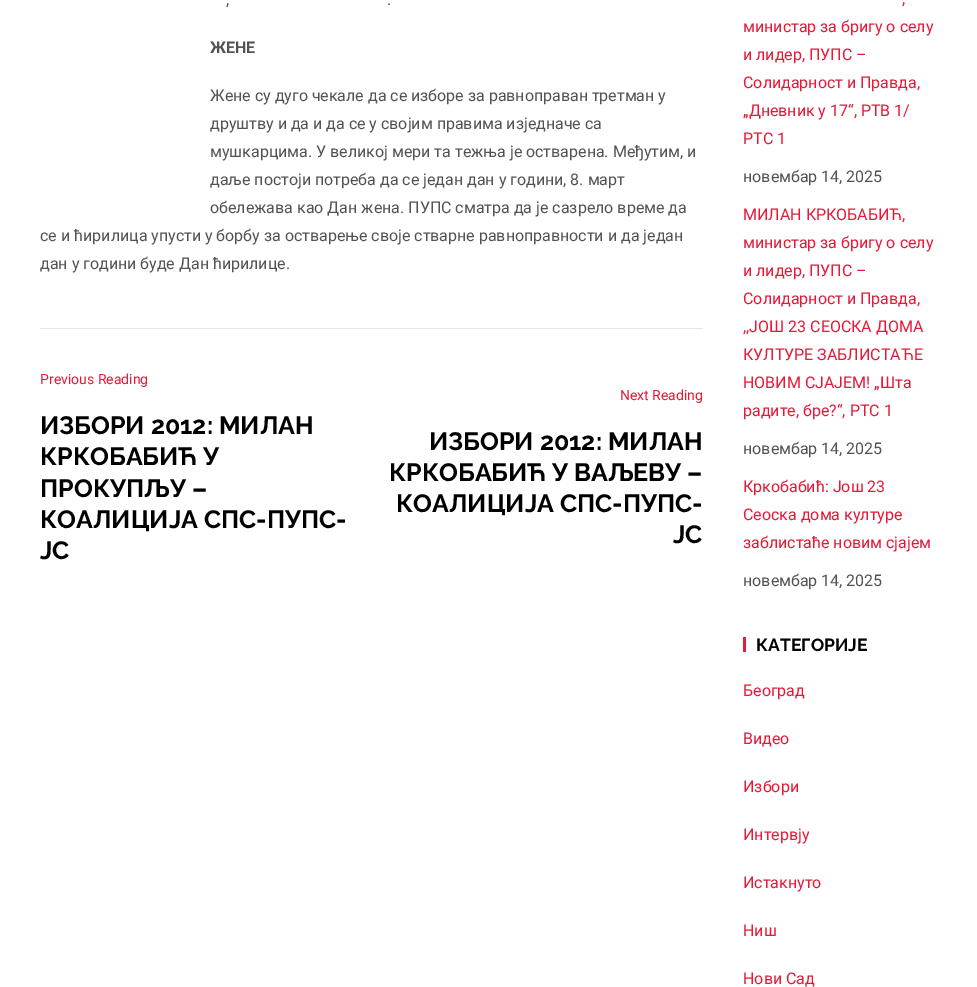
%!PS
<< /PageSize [977 987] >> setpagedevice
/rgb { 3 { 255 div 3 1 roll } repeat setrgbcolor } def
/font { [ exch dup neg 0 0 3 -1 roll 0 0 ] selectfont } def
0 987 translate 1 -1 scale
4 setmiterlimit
255 255 255 rgb
0 0 977 987 rectfill
229 229 229 rgb
40 328 663 1 rectfill
230 25 55 rgb
743 637 3 15 rectfill
/Roboto-Regular 16 font
83 83 83 rgb
226 5 moveto (,) show
387 5 moveto (.) show
/Roboto-Bold 16 font
210 53 moveto (ЖЕНЕ) show
/Roboto-Regular 16 font
[
  [(Жене су дуго чекале да се изборе за равноправан третман у) 210 101]
  [(друштву и да и да се у својим правима изједначе са) 210 129]
  [(мушкарцима. У великој мери та тежња је остварена. Међутим, и) 210 157]
  [(даље постоји потреба да се један дан у години, 8. март) 210 185]
  [(обележава као Дан жена. ПУПС сматра да је сазрело време да) 210 213]
  [(се и ћирилица упусти у борбу за остварење своје стварне равноправности и да један) 40 241]
  [(дан у години буде Дан ћирилице.) 40 269]
] { aload pop moveto show } forall
/Roboto-Regular 14 font
230 25 55 rgb
40 384 moveto (Previous Reading) show
/Raleway-Thin 25 font
0 0 0 rgb
[
  [(ИЗБОРИ 2012: МИЛАН) 40 434]
  [(КРКОБАБИЋ У) 40 465]
  [(ПРОКУПЉУ –) 40 497]
  [(КОАЛИЦИЈА СПС-ПУПС-) 40 528]
  [(ЈС) 40 559]
] { aload pop moveto show } forall
/Roboto-Regular 14 font
230 25 55 rgb
620 400 moveto (Next Reading) show
/Raleway-Thin 25 font
0 0 0 rgb
[
  [(ИЗБОРИ 2012: МИЛАН) 429 450]
  [(КРКОБАБИЋ У ВАЉЕВУ –) 389 481]
  [(КОАЛИЦИЈА СПС-ПУПС-) 396 512]
  [(ЈС) 673 543]
] { aload pop moveto show } forall
/Roboto-Regular 16 font
230 25 55 rgb
[
  [(,) 902 4]
  [(министар за бригу о селу) 743 32]
  [(и лидер, ПУПС –) 743 60]
  [(Солидарност и Правда,) 743 88]
  [(„Дневник у 17“, РТВ 1/) 743 116]
  [(РТС 1) 743 144]
] { aload pop moveto show } forall
83 83 83 rgb
743 182 moveto (новембар 14, 2025) show
230 25 55 rgb
[
  [(МИЛАН КРКОБАБИЋ,) 743 220]
  [(министар за бригу о селу) 743 248]
  [(и лидер, ПУПС –) 743 276]
  [(Солидарност и Правда,) 743 304]
  [(,,ЈОШ 23 СЕОСКА ДОМА) 743 332]
  [(КУЛТУРЕ ЗАБЛИСТАЋЕ) 743 360]
  [(НОВИМ СЈАЈЕМ! „Шта) 743 388]
  [(радите, бре?“, РТС 1) 743 416]
] { aload pop moveto show } forall
83 83 83 rgb
743 454 moveto (новембар 14, 2025) show
230 25 55 rgb
[
  [(Кркобабић: Још 23) 743 492]
  [(Сеоска дома културе) 743 520]
  [(заблистаће новим сјајем) 743 548]
] { aload pop moveto show } forall
83 83 83 rgb
743 586 moveto (новембар 14, 2025) show
/Raleway-Thin 17.5 font
0 0 0 rgb
756 651 moveto (КАТЕГОРИЈЕ) show
/Roboto-Regular 16 font
230 25 55 rgb
[
  [(Београд) 743 696]
  [(Видео) 743 744]
  [(Избори) 743 792]
  [(Интервју) 743 840]
  [(Истакнуто) 743 888]
  [(Ниш) 743 936]
  [(Нови Сад) 743 984]
] { aload pop moveto show } forall
showpage
